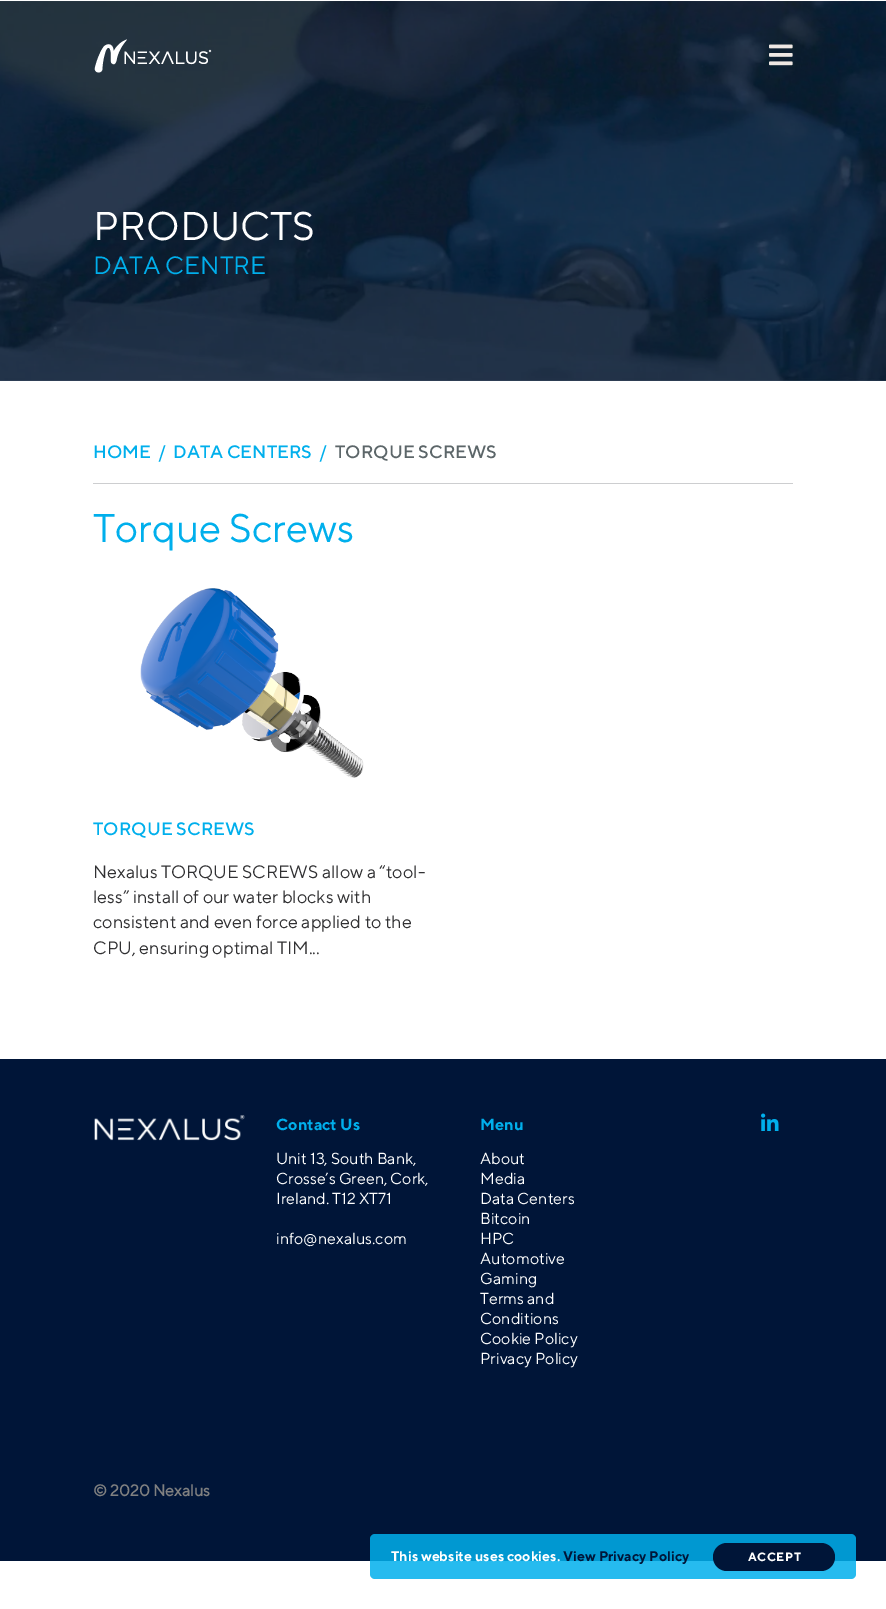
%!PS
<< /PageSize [886 1609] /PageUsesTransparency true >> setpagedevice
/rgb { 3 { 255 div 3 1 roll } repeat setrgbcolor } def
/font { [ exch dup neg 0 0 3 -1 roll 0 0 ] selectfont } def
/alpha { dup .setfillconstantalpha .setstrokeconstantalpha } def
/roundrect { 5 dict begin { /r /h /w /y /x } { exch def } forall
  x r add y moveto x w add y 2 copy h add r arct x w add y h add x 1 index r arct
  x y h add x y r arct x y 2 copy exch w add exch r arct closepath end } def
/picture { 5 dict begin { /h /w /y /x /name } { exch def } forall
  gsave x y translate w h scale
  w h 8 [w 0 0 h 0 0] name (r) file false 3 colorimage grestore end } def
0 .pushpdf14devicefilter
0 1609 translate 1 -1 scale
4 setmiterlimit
255 255 255 rgb
0 0 886 1609 rectfill
(img/3.rgb) 0 1 886 380 picture
(img/1.rgb) 94 39 118 34 picture
(img/2.rgb) 769 44 24 22 picture
205 206 208 rgb
93 483 700 1 rectfill
(img/4.rgb) 140 588 224 190 picture
0 21 56 rgb
0 1059 886 502 rectfill
(img/5.rgb) 94 1115 151 26 picture
(img/6.rgb) 761 1113 18 18 picture
0.85 alpha
0 175 236 rgb
370 1534 486 45 5 roundrect fill
1 alpha
0 21 56 rgb
713 1543 122 28 14 roundrect fill
/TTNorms-Regular 40 font
255 255 255 rgb
93 240 moveto (PRODUCTS) show
/TTNorms-Regular 25 font
0 175 236 rgb
93 274 moveto (DATA CENTRE) show
/TTNorms-Medium 18 font
[
  [(HOME) 93 458]
  [(/) 158 458]
  [(DATA CENTERS) 173 458]
  [(/) 319 458]
] { aload pop moveto show } forall
92 102 105 rgb
335 458 moveto (TORQUE SCREWS) show
/TTNorms-Regular 40 font
0 175 236 rgb
93 542 moveto (Torque Screws) show
/TTNorms-Medium 18 font
93 835 moveto (TORQUE SCREWS) show
/TTNorms-Regular 18 font
49 49 51 rgb
[
  [(Nexalus TORQUE SCREWS allow a “tool-) 93 878]
  [(less” install of our water blocks with) 93 903]
  [(consistent and even force applied to the) 93 928]
  [(CPU, ensuring optimal TIM...) 93 954]
] { aload pop moveto show } forall
/TTNorms-Bold 16 font
0 175 236 rgb
276 1130 moveto (Contact Us) show
/TTNorms-Regular 16 font
255 255 255 rgb
[
  [(Unit 13, South Bank,) 276 1164]
  [(Crosse’s Green, Cork,) 276 1184]
  [(Ireland. T12 XT71) 276 1204]
  [(info@nexalus.com) 276 1244]
] { aload pop moveto show } forall
/TTNorms-Bold 16 font
0 175 236 rgb
480 1130 moveto (Menu) show
/TTNorms-Regular 16 font
255 255 255 rgb
[
  [(About) 480 1164]
  [(Media) 480 1184]
  [(Data Centers) 480 1204]
  [(Bitcoin) 480 1224]
  [(HPC) 480 1244]
  [(Automotive) 480 1264]
  [(Gaming) 480 1284]
  [(Terms and) 480 1304]
  [(Conditions) 480 1324]
  [(Cookie Policy) 480 1344]
  [(Privacy Policy) 480 1364]
] { aload pop moveto show } forall
/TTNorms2-Bold 16 font
128 128 128 rgb
93 1496 moveto (© 2020 Nexalus) show
/TTNorms-Bold 14 font
255 255 255 rgb
391 1561 moveto (This website uses cookies.) show
0 21 56 rgb
563 1561 moveto (View Privacy Policy) show
/TTNorms-Bold 12 font
255 255 255 rgb
748 1561 moveto 0.5 0 (ACCEPT) ashow
.poppdf14devicefilter showpage
